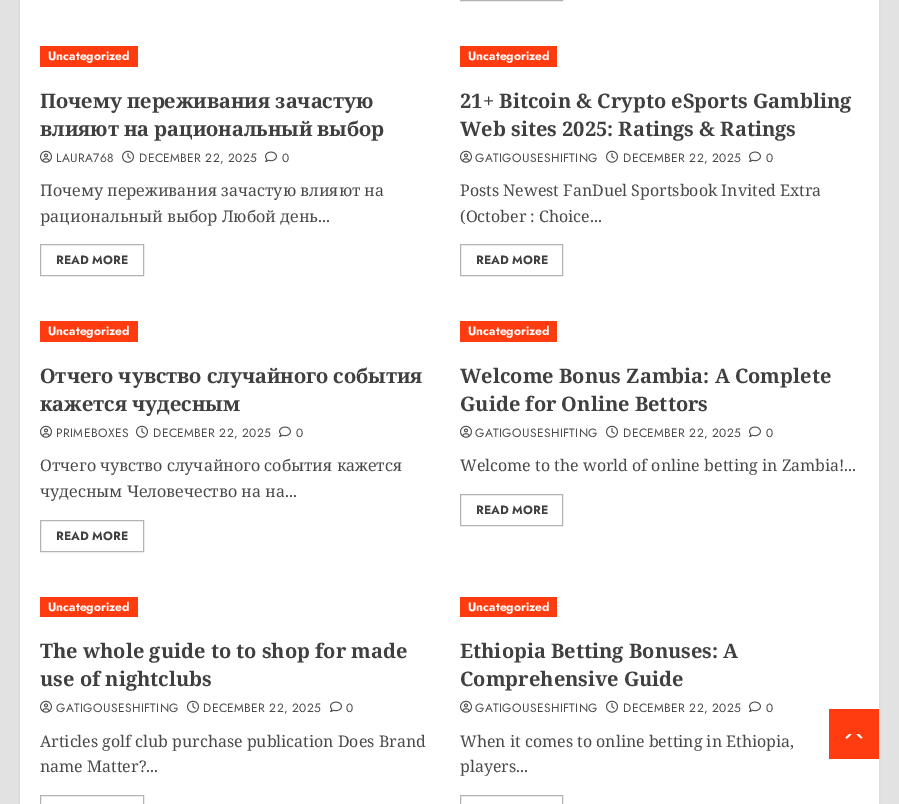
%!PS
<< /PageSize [899 804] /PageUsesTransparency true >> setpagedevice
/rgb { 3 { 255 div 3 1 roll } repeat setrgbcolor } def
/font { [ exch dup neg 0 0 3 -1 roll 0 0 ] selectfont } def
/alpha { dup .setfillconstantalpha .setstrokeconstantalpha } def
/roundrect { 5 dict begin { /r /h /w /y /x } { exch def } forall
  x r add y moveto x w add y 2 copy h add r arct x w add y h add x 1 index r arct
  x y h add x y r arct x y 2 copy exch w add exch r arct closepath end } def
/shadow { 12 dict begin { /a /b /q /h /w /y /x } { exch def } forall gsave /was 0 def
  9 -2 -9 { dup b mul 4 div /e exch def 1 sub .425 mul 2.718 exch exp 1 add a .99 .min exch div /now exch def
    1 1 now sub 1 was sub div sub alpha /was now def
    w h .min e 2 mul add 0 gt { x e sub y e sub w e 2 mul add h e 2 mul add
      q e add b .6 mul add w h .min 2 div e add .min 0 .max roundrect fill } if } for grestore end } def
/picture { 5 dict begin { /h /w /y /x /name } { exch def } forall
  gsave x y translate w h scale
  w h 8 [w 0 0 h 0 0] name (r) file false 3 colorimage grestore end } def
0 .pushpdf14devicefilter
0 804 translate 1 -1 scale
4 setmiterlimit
226 226 226 rgb
0 0 899 804 rectfill
0 0 0 rgb
20 -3 859 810 0 1 0.08 shadow
255 255 255 rgb
20 0 859 804 rectfill
179 179 179 rgb
460.5 -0.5 102 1 rectstroke
255 60 16 rgb
40 46 98 21 rectfill
(img/1.rgb) 40 150 12 13 picture
(img/2.rgb) 122 150 12 13 picture
(img/3.rgb) 265 151 12 11 picture
179 179 179 rgb
40.5 244.5 103 31 rectstroke
255 60 16 rgb
460 46 97 21 rectfill
(img/1.rgb) 460 150 12 13 picture
(img/2.rgb) 606 150 12 13 picture
(img/3.rgb) 749 151 12 11 picture
179 179 179 rgb
460.5 244.5 102 31 rectstroke
255 60 16 rgb
40 321 98 21 rectfill
(img/1.rgb) 40 425 12 13 picture
(img/2.rgb) 136 425 12 13 picture
(img/3.rgb) 279 426 12 11 picture
179 179 179 rgb
40.5 520.5 103 31 rectstroke
255 60 16 rgb
460 321 97 21 rectfill
(img/1.rgb) 460 425 12 13 picture
(img/2.rgb) 606 425 12 13 picture
(img/3.rgb) 749 426 12 11 picture
179 179 179 rgb
460.5 494.5 102 31 rectstroke
255 60 16 rgb
40 597 98 20 rectfill
(img/1.rgb) 40 700 12 13 picture
(img/2.rgb) 187 700 12 13 picture
(img/3.rgb) 330 701 12 11 picture
179 179 179 rgb
40.5 795.5 103 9 rectstroke
255 60 16 rgb
460 597 97 20 rectfill
(img/1.rgb) 460 700 12 13 picture
(img/2.rgb) 606 700 12 13 picture
(img/3.rgb) 749 701 12 11 picture
179 179 179 rgb
460.5 795.5 102 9 rectstroke
255 60 16 rgb
829 709 50 50 rectfill
255 255 255 rgb
849 739 moveto 852 739 860.5 740 862.5 737.5 curveto 859 734 lineto 849 734 lineto 845.5 737.5 lineto 846 738.5 847.5 739 849 739 curveto closepath fill
255 60 16 rgb
864 742 moveto 844 742 lineto 854 732 lineto closepath fill
/Jost-Bold 12 font
255 255 255 rgb
48 60 moveto (Uncategorized) show
/NotoSerif-Bold 20 font
64 64 64 rgb
40 108 moveto (Почему переживания зачастую) show
40 136 moveto (влияют на рациональный выбор) show
/Jost-Regular 12 font
74 74 74 rgb
56 162 moveto 0.4 0 (LAURA768) ashow
139 162 moveto 0.4 0 (DECEMBER 22, 2025) ashow
282 162 moveto 0.4 0 (0) ashow
/NotoSerif-Regular 16 font
40 196 moveto (Почему переживания зачастую влияют на) show
40 222 moveto (рациональный выбор Любой день...) show
/Jost-Bold 12 font
64 64 64 rgb
56 264 moveto (READ MORE) show
255 255 255 rgb
468 60 moveto (Uncategorized) show
/NotoSerif-Bold 20 font
64 64 64 rgb
460 108 moveto (21+ Bitcoin & Crypto eSports Gambling) show
460 136 moveto (Web sites 2025: Ratings & Ratings) show
/Jost-Regular 12 font
74 74 74 rgb
475 162 moveto 0.4 0 (GATIGOUSESHIFTING) ashow
623 162 moveto 0.4 0 (DECEMBER 22, 2025) ashow
766 162 moveto 0.4 0 (0) ashow
/NotoSerif-Regular 16 font
460 196 moveto (Posts Newest FanDuel Sportsbook Invited Extra) show
460 222 moveto (\(October : Choice...) show
/Jost-Bold 12 font
64 64 64 rgb
476 264 moveto (READ MORE) show
255 255 255 rgb
48 335 moveto (Uncategorized) show
/NotoSerif-Bold 20 font
64 64 64 rgb
40 383 moveto (Отчего чувство случайного события) show
40 411 moveto (кажется чудесным) show
/Jost-Regular 12 font
74 74 74 rgb
56 437 moveto 0.4 0 (PRIMEBOXES) ashow
153 437 moveto 0.4 0 (DECEMBER 22, 2025) ashow
296 437 moveto 0.4 0 (0) ashow
/NotoSerif-Regular 16 font
40 471 moveto (Отчего чувство случайного события кажется) show
40 497 moveto (чудесным Человечество на на...) show
/Jost-Bold 12 font
64 64 64 rgb
56 540 moveto (READ MORE) show
255 255 255 rgb
468 335 moveto (Uncategorized) show
/NotoSerif-Bold 20 font
64 64 64 rgb
460 383 moveto (Welcome Bonus Zambia: A Complete) show
460 411 moveto (Guide for Online Bettors) show
/Jost-Regular 12 font
74 74 74 rgb
475 437 moveto 0.4 0 (GATIGOUSESHIFTING) ashow
623 437 moveto 0.4 0 (DECEMBER 22, 2025) ashow
766 437 moveto 0.4 0 (0) ashow
/NotoSerif-Regular 16 font
460 471 moveto (Welcome to the world of online betting in Zambia!...) show
/Jost-Bold 12 font
64 64 64 rgb
476 514 moveto (READ MORE) show
255 255 255 rgb
48 611 moveto (Uncategorized) show
/NotoSerif-Bold 20 font
64 64 64 rgb
40 658 moveto (The whole guide to to shop for made) show
40 686 moveto (use of nightclubs) show
/Jost-Regular 12 font
74 74 74 rgb
56 712 moveto 0.4 0 (GATIGOUSESHIFTING) ashow
203 712 moveto 0.4 0 (DECEMBER 22, 2025) ashow
346 712 moveto 0.4 0 (0) ashow
/NotoSerif-Regular 16 font
40 747 moveto (Articles golf club purchase publication Does Brand) show
40 772 moveto (name Matter?...) show
/Jost-Bold 12 font
255 255 255 rgb
468 611 moveto (Uncategorized) show
/NotoSerif-Bold 20 font
64 64 64 rgb
460 658 moveto (Ethiopia Betting Bonuses: A) show
460 686 moveto (Comprehensive Guide) show
/Jost-Regular 12 font
74 74 74 rgb
475 712 moveto 0.4 0 (GATIGOUSESHIFTING) ashow
623 712 moveto 0.4 0 (DECEMBER 22, 2025) ashow
766 712 moveto 0.4 0 (0) ashow
/NotoSerif-Regular 16 font
460 747 moveto (When it comes to online betting in Ethiopia,) show
460 772 moveto (players...) show
.poppdf14devicefilter showpage
